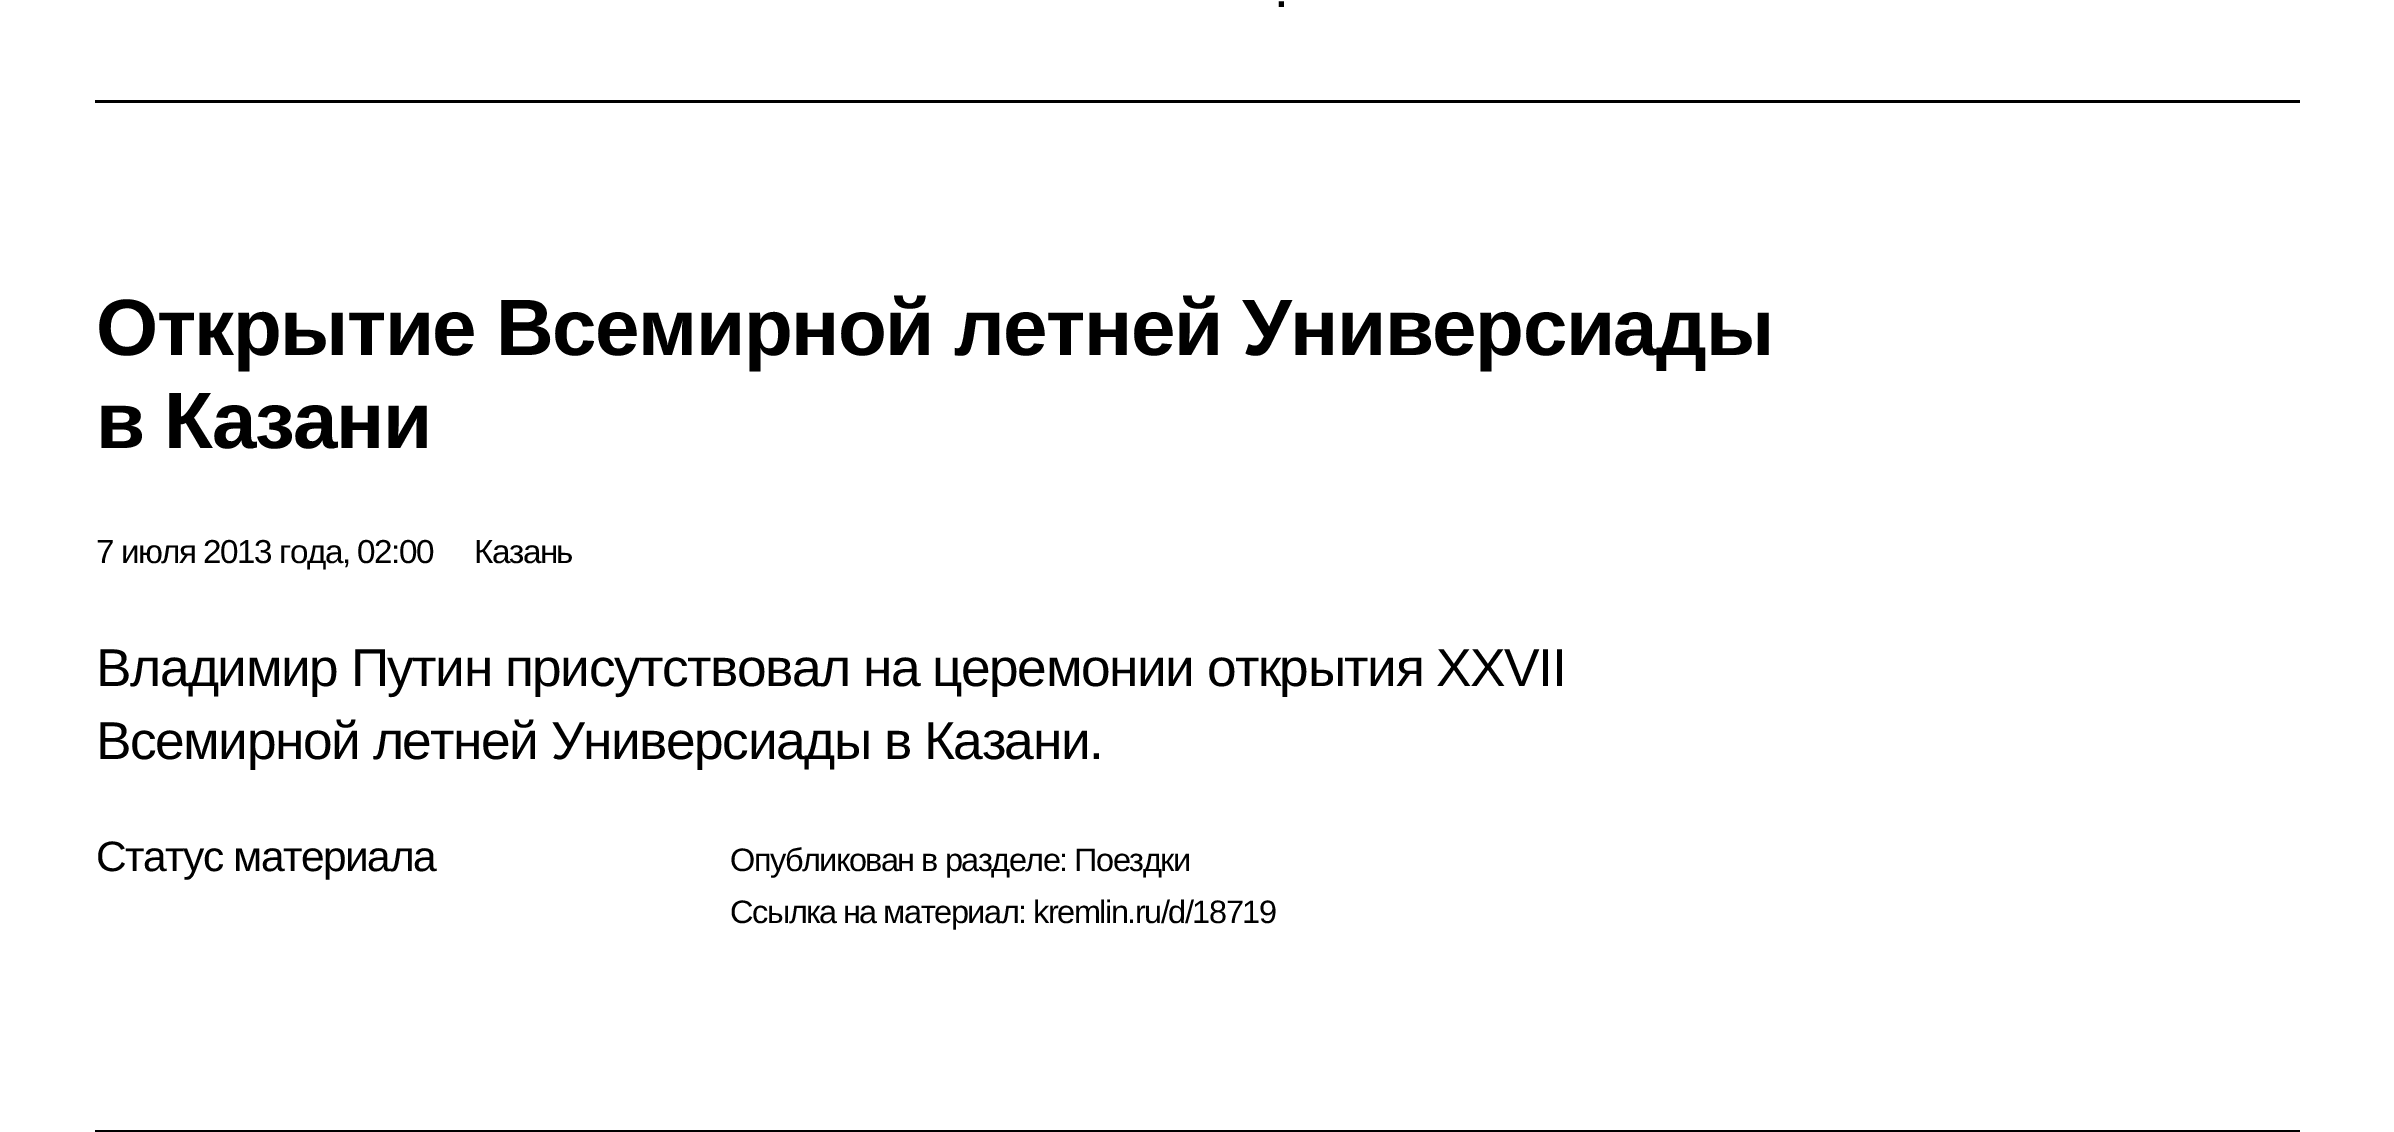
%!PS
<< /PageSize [2394 1132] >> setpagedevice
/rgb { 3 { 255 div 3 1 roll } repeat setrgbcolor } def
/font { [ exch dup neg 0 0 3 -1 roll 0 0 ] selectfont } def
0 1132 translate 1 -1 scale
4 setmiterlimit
255 255 255 rgb
0 0 2394 1132 rectfill
0 0 0 rgb
95 1130 2205 2 rectfill
95 100 2205 3 rectfill
/LiberationSans-Regular 53.3 font
1274 7 moveto -1.5 0 (.) ashow
/LiberationSans-Bold 80 font
96 355 moveto -1.5 0 (Открытие Всемирной летней Универсиады) ashow
96 448 moveto -1.5 0 (в Казани) ashow
/LiberationSans-Regular 33.25 font
96 563 moveto -1.5 0 (7 июля 2013 года, 02:00) ashow
474 563 moveto -1.5 0 (Казань) ashow
/LiberationSans-Regular 53.3 font
96 686 moveto -1.5 0 (Владимир Путин присутствовал на церемонии открытия XXVII) ashow
96 759 moveto -1.5 0 (Всемирной летней Универсиады в Казани.) ashow
/LiberationSans-Regular 42.5 font
96 871 moveto -1.5 0 (Статус материала) ashow
/LiberationSans-Regular 32.5 font
730 871 moveto -1.5 0 (Опубликован в разделе: Поездки) ashow
730 923 moveto -1.5 0 (Ссылка на материал: kremlin.ru/d/18719) ashow
showpage
